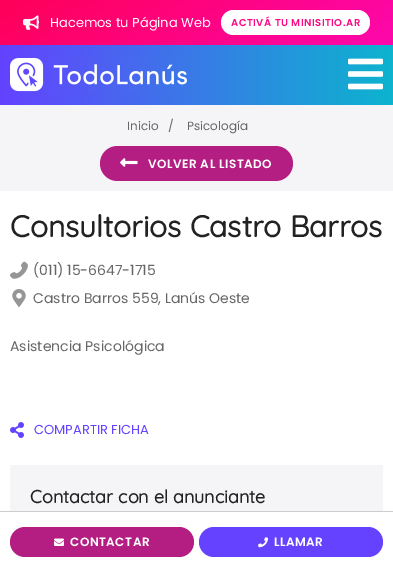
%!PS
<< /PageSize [393 572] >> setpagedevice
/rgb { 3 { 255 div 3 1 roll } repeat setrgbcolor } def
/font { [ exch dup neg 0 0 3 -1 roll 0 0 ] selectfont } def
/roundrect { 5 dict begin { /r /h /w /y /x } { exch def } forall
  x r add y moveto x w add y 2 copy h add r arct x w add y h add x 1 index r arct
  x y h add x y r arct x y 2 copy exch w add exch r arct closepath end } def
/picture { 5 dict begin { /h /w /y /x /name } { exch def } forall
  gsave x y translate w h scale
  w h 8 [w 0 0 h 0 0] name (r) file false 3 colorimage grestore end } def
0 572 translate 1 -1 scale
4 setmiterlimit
255 255 255 rgb
0 0 393 572 rectfill
gsave 0 0 moveto 393 0 lineto 393 45 lineto 0 45 lineto closepath clip newpath
<< /ShadingType 2 /ColorSpace /DeviceRGB /Coords [121 -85 272 130] /Extend [true true] /Function << /FunctionType 2 /Domain [0 1] /C0 [1 0 0.341] /C1 [0.992 0.031 0.678] /N 1 >> >> shfill grestore
(img/1.rgb) 23 15 16 15 picture
221 10 149 25 12.5 roundrect fill
gsave 0 45 moveto 393 45 lineto 393 105 lineto 0 105 lineto closepath clip newpath
<< /ShadingType 2 /ColorSpace /DeviceRGB /Coords [0 75 393 75] /Extend [true true] /Function << /FunctionType 2 /Domain [0 1] /C0 [0.392 0.259 1] /C1 [0.047 0.706 0.808] /N 1 >> >> shfill grestore
(img/2.rgb) 10 58 177 34 picture
(img/3.rgb) 348 58 35 32 picture
245 244 247 rgb
0 105 393 86 rectfill
180 30 130 rgb
100 146 193 35 17.5 roundrect fill
(img/4.rgb) 120 158 18 9 picture
(img/5.rgb) 10 261 18 18 picture
(img/6.rgb) 12 289 14 18 picture
(img/7.rgb) 10 422 14 16 picture
245 244 247 rgb
10 465 373 46 rectfill
204 204 204 rgb
0 511 393 1 rectfill
180 30 130 rgb
10 527 184 30 15 roundrect fill
(img/8.rgb) 54 538 10 8 picture
100 66 255 rgb
199 527 184 30 15 roundrect fill
(img/9.rgb) 258 537 10 11 picture
/Poppins-Regular 13 font
255 255 255 rgb
50 27 moveto (Hacemos tu Página Web) show
/Poppins-SemiBold 10 font
253 8 130 rgb
231 26 moveto 0.5 0 (ACTIVÁ TU MINISITIO.AR) ashow
/Poppins-Regular 12 font
102 102 102 rgb
[
  [(Inicio) 127 130]
  [(/) 168 130]
  [(Psicología) 187 130]
] { aload pop moveto show } forall
/Poppins-SemiBold 12 font
255 255 255 rgb
148 168 moveto 0.5 0 (VOLVER AL LISTADO) ashow
/Quicksand-Bold 30 font
34 34 34 rgb
10 237 moveto (Consultorios Castro Barros) show
/Poppins-Regular 14 font
102 102 102 rgb
[
  [(\(011\) 15-6647-1715) 33 275]
  [(Castro Barros 559, Lanús Oeste) 33 303]
  [(Asistencia Psicológica) 10 351]
] { aload pop moveto show } forall
/Poppins-Regular 13 font
100 66 255 rgb
34 434 moveto (COMPARTIR FICHA) show
/Quicksand-Bold 18 font
34 34 34 rgb
30 503 moveto (Contactar con el anunciante) show
/Poppins-SemiBold 12 font
255 255 255 rgb
70 546 moveto 0.5 0 (CONTACTAR) ashow
274 546 moveto 0.5 0 (LLAMAR) ashow
showpage
